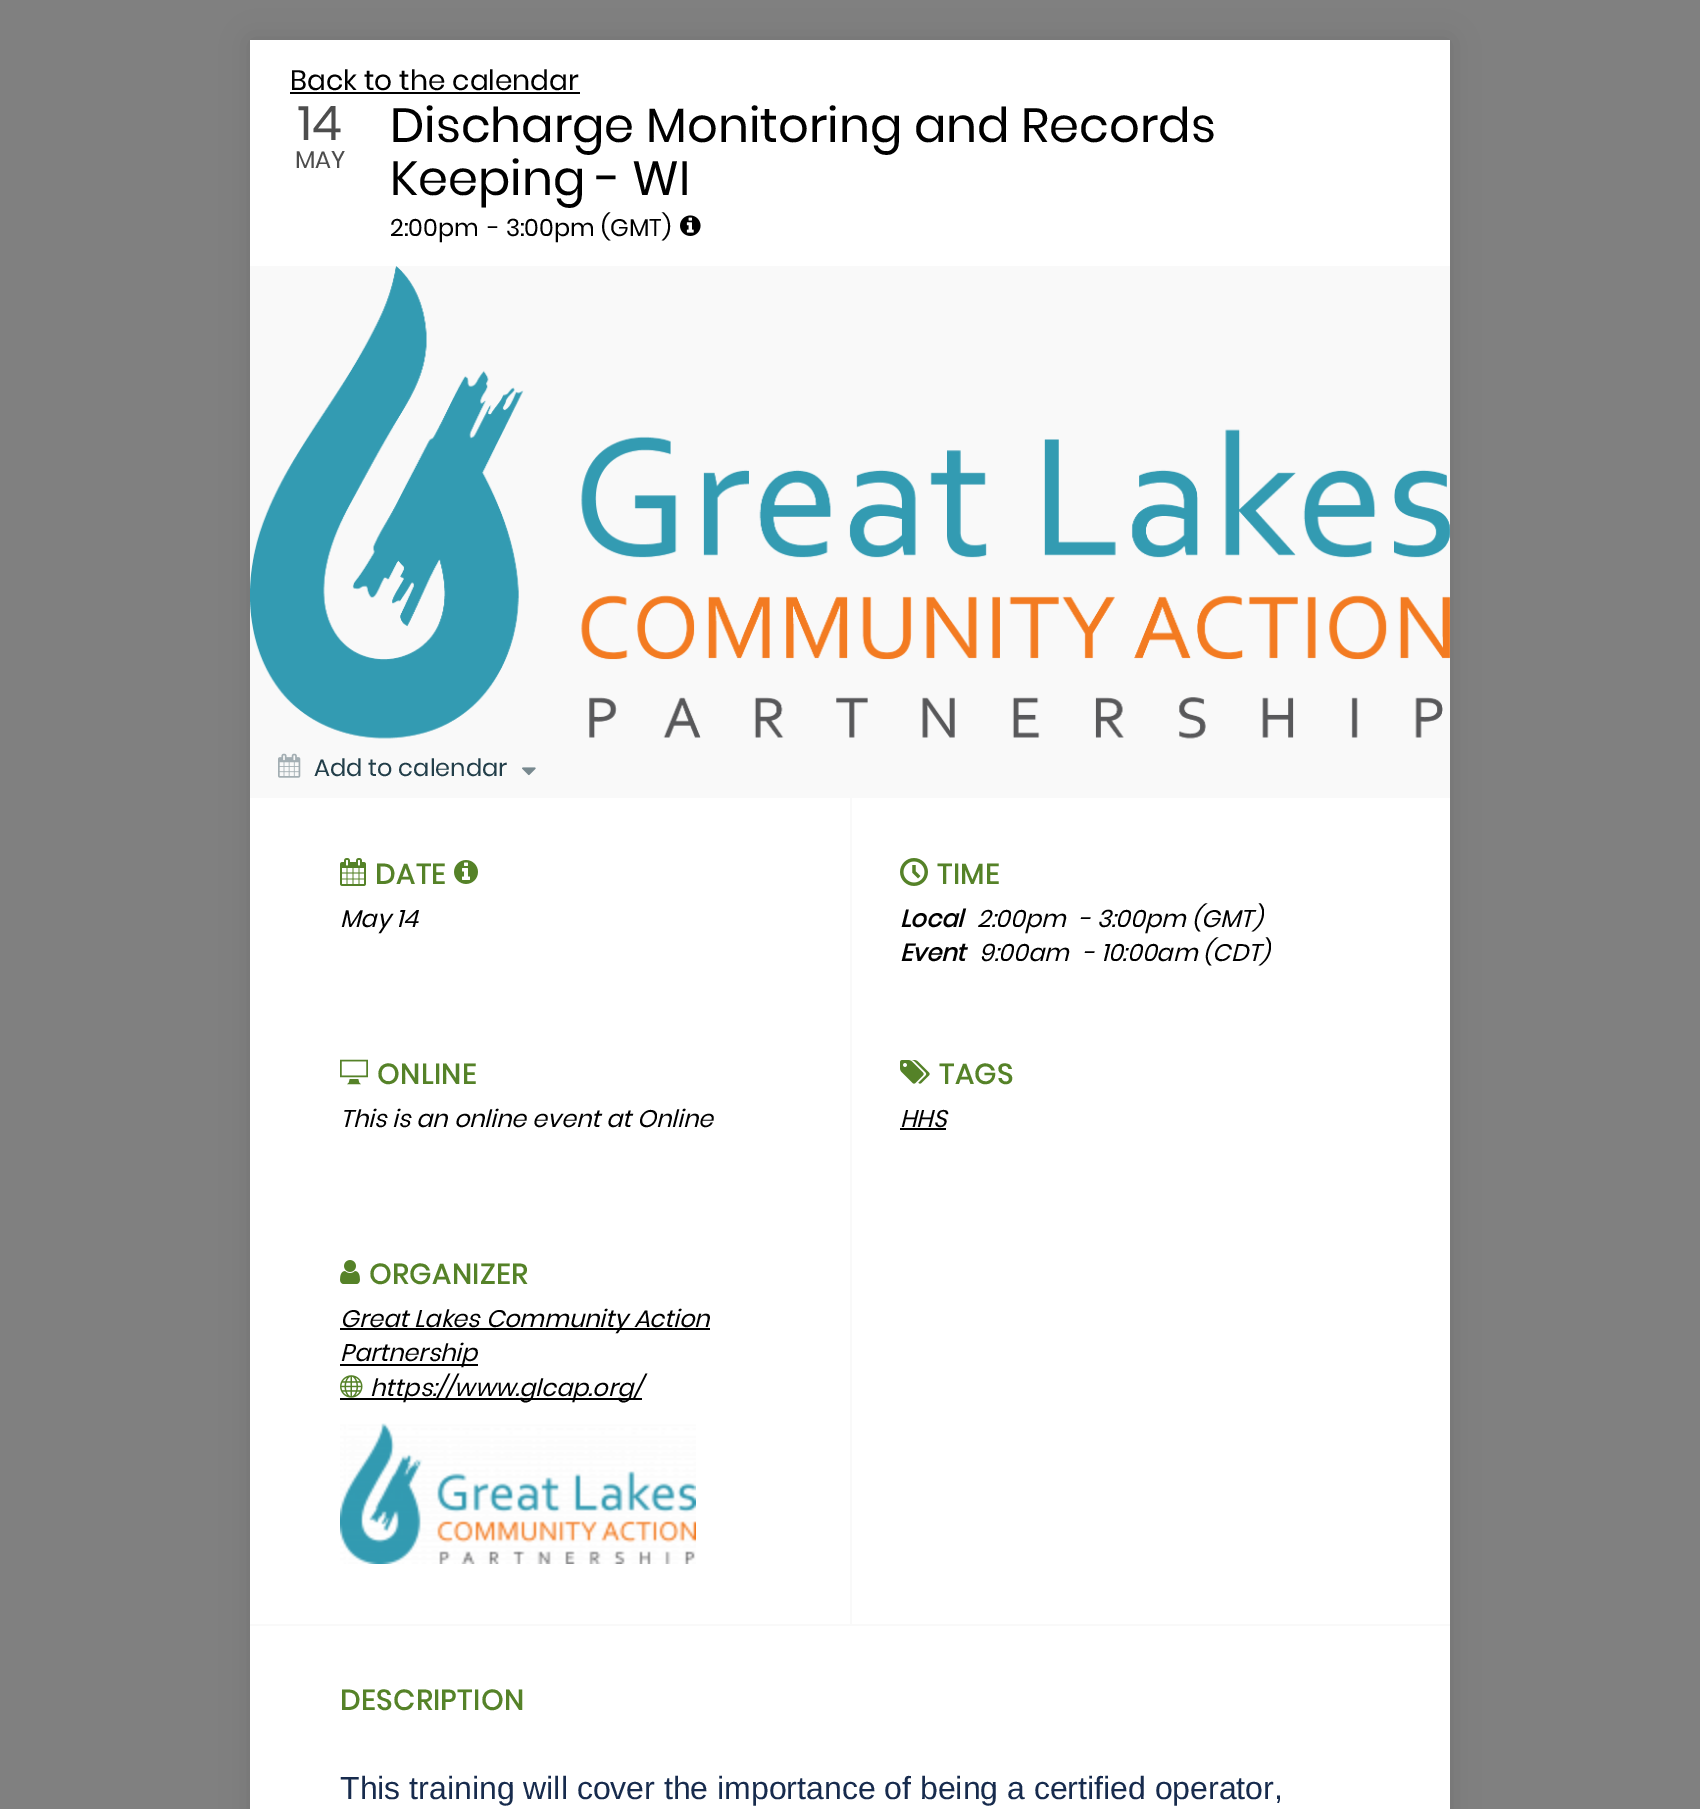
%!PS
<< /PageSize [1700 1809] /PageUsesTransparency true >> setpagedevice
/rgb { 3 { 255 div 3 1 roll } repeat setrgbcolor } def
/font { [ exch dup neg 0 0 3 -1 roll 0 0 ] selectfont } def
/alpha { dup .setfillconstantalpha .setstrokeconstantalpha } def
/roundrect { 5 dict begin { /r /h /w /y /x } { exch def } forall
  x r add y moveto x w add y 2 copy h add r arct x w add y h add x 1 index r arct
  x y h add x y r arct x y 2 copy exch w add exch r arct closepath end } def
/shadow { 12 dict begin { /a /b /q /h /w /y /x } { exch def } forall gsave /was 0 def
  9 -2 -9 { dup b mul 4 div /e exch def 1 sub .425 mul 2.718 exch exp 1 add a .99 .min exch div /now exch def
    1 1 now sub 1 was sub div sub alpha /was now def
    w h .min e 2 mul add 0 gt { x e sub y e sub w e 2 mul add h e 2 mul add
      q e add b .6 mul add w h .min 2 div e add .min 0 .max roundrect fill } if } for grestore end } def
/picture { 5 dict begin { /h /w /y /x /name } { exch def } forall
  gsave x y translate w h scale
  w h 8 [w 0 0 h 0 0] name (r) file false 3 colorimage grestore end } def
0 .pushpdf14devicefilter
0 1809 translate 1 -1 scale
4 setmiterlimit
128 128 128 rgb
0 0 1700 1809 rectfill
0 0 0 rgb
250 40 1200 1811 0 14 0.13 shadow
255 255 255 rgb
250 40 1200 1769 rectfill
0 0 0 rgb
290 92 290 2 rectfill
(img/1.rgb) 680 215 21 21 picture
249 249 249 rgb
250 266 1200 532 rectfill
(img/2.rgb) 250 266 1200 473 picture
(img/3.rgb) 278 753 23 25 picture
(img/4.rgb) 522 767 14 9 picture
250 1624 1200 2 rectfill
(img/5.rgb) 340 858 26 28 picture
(img/6.rgb) 454 860 24 24 picture
850 798 2 826 rectfill
(img/7.rgb) 900 858 28 28 picture
(img/8.rgb) 340 1059 28 26 picture
(img/9.rgb) 900 1060 30 24 picture
0 0 0 rgb
900 1128 46 2 rectfill
(img/10.rgb) 340 1260 20 24 picture
340 1328 370 2 rectfill
340 1364 138 2 rectfill
(img/11.rgb) 340 1375 23 23 picture
340 1398 302 2 rectfill
(img/12.rgb) 340 1423 356 141 picture
/Poppins-Regular 28 font
290 90 moveto (Back to the calendar) show
/Poppins-Regular 48 font
77 77 77 rgb
298 140 moveto (14) show
/Poppins-Regular 24 font
295 168 moveto (MAY) show
/Poppins-Regular 48 font
0 0 0 rgb
390 142 moveto (Discharge Monitoring and Records) show
390 195 moveto (Keeping - WI) show
/Poppins-Regular 24 font
390 236 moveto (2:00pm) show
488 236 moveto (- 3:00pm \(GMT\)) show
34 62 73 rgb
314 776 moveto (Add to calendar) show
/Poppins-Bold 28 font
85 130 40 rgb
375 884 moveto 1 0 (DATE) ashow
/Poppins-Italic 24 font
0 0 0 rgb
340 927 moveto (May 14) show
/Poppins-Bold 28 font
85 130 40 rgb
937 884 moveto 1 0 (TIME) ashow
/Poppins-BoldItalic 24 font
0 0 0 rgb
900 927 moveto (Local) show
/Poppins-Italic 24 font
977 927 moveto (2:00pm) show
1079 927 moveto (- 3:00pm \(GMT\)) show
/Poppins-BoldItalic 24 font
900 961 moveto (Event) show
/Poppins-Italic 24 font
979 961 moveto (9:00am) show
1083 961 moveto (- 10:00am \(CDT\)) show
/Poppins-Bold 28 font
85 130 40 rgb
377 1084 moveto 1 0 (ONLINE) ashow
/Poppins-Italic 24 font
0 0 0 rgb
340 1127 moveto (This is an online event at Online) show
/Poppins-Bold 28 font
85 130 40 rgb
939 1084 moveto 1 0 (TAGS) ashow
/Poppins-Italic 24 font
0 0 0 rgb
900 1127 moveto (HHS) show
/Poppins-Bold 28 font
85 130 40 rgb
369 1284 moveto 1 0 (ORGANIZER) ashow
/Poppins-Italic 24 font
0 0 0 rgb
[
  [(Great Lakes Community Action) 340 1327]
  [(Partnership) 340 1361]
  [(https://www.glcap.org/) 370 1396]
] { aload pop moveto show } forall
/Poppins-Bold 28 font
85 130 40 rgb
340 1710 moveto 1 0 (DESCRIPTION) ashow
/LiberationSans-Regular 32 font
23 43 77 rgb
340 1799 moveto (This training will cover the importance of being a certified operator,) show
.poppdf14devicefilter showpage
